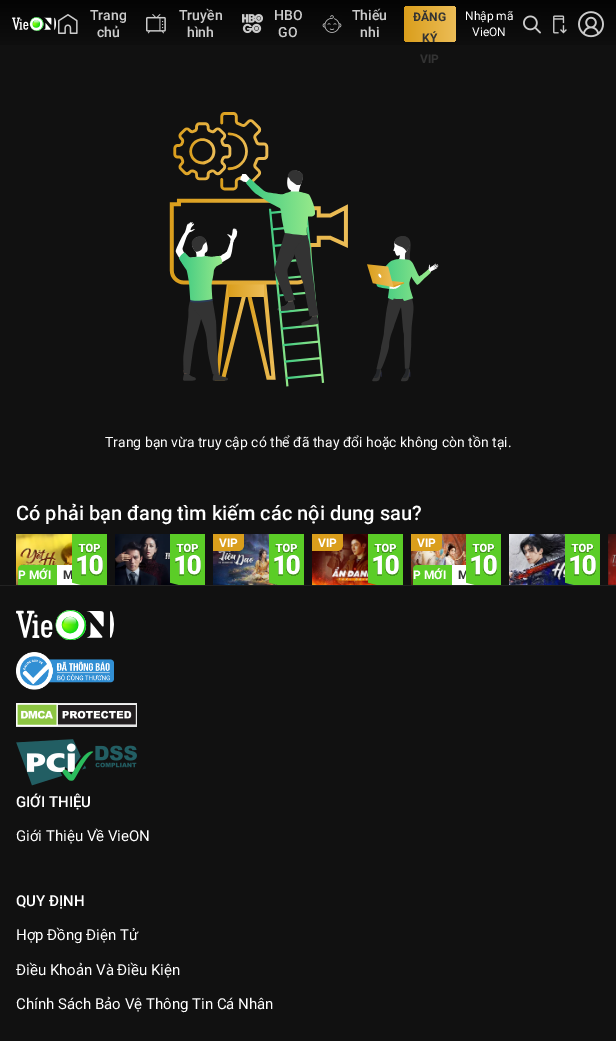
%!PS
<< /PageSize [616 1041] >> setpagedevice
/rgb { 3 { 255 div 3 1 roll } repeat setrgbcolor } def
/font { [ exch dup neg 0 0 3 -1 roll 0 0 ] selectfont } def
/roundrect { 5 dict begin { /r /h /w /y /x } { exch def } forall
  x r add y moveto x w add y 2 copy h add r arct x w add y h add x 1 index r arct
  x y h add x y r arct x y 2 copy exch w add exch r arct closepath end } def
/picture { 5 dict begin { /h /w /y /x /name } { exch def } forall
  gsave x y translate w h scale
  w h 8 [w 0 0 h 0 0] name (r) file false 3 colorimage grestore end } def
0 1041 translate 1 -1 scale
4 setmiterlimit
17 17 17 rgb
0 0 616 1041 rectfill
gsave 0 0 moveto 616 0 lineto 616 45 lineto 0 45 lineto closepath clip newpath
<< /ShadingType 2 /ColorSpace /DeviceRGB /Coords [308 56 308 0] /Extend [true true] /Function << /FunctionType 2 /Domain [0 1] /C0 [0.067 0.067 0.067] /C1 [0.016 0.016 0.016] /N 1 >> >> shfill grestore
(img/1.rgb) 12 17 44 14 picture
(img/2.rgb) 58 14 20 20 picture
(img/3.rgb) 146 14 20 20 picture
(img/4.rgb) 242 14 21 20 picture
(img/5.rgb) 322 15 20 18 picture
gsave 404 6 52 36 4 roundrect clip newpath
<< /ShadingType 2 /ColorSpace /DeviceRGB /Coords [404 24 456 24] /Extend [true true] /Function << /FunctionType 2 /Domain [0 1] /C0 [0.855 0.62 0.11] /C1 [0.925 0.741 0.341] /N 1 >> >> shfill grestore
(img/6.rgb) 523 15 18 19 picture
(img/7.rgb) 553 15 14 19 picture
(img/8.rgb) 578 11 26 27 picture
(img/9.rgb) 169 112 270 275 picture
(img/10.rgb) 16 534 56 51 picture
91 205 39 rgb
22 565 moveto 57 565 lineto 57 585 lineto 18 585 lineto 18 569 lineto 18 567 20 565 22 565 curveto closepath fill
255 255 255 rgb
57 565 24 20 rectfill
(img/12.rgb) 115 534 64 51 picture
(img/13.rgb) 170 534 35 51 picture
(img/14.rgb) 213 534 65 51 picture
(img/15.rgb) 269 534 35 51 picture
218 158 28 rgb
213 534 moveto 244 534 lineto 244 545 lineto 244 548.5 241.5 551 238 551 curveto 213 551 lineto closepath fill
(img/16.rgb) 312 534 65 51 picture
(img/17.rgb) 368 534 35 51 picture
312 534 moveto 343 534 lineto 343 545 lineto 343 548.5 340.5 551 337 551 curveto 312 551 lineto closepath fill
(img/18.rgb) 411 534 55 51 picture
411 534 moveto 442 534 lineto 442 545 lineto 442 548.5 439.5 551 436 551 curveto 411 551 lineto closepath fill
91 205 39 rgb
417 565 moveto 452 565 lineto 452 585 lineto 413 585 lineto 413 569 lineto 413 567 415 565 417 565 curveto closepath fill
255 255 255 rgb
452 565 23 20 rectfill
(img/20.rgb) 509 534 65 51 picture
(img/21.rgb) 565 534 35 51 picture
(img/22.rgb) 608 534 8 51 picture
34 34 34 rgb
0 585 616 1 rectfill
(img/23.rgb) 16 610 98 30 picture
(img/24.rgb) 16 652 98 38 picture
230 230 230 rgb
16 703 121 24 rectfill
(img/25.rgb) 16 703 121 23 picture
(img/26.rgb) 16 739 121 47 picture
/Roboto-Medium 14 font
204 204 204 rgb
[
  [(Trang) 90 20]
  [(chủ) 97 37]
  [(Truyền) 179 20]
  [(hình) 187 37]
  [(HBO) 274 20]
  [(GO) 278 37]
  [(Thiếu) 352 20]
  [(nhi) 360 37]
] { aload pop moveto show } forall
/Roboto-Bold 12 font
51 51 51 rgb
[
  [(ĐĂNG) 413 21]
  [(KÝ) 422 42]
  [(VIP) 420 63]
] { aload pop moveto show } forall
/Roboto-Regular 12 font
255 255 255 rgb
465 20 moveto (Nhập mã) show
472 36 moveto (VieON) show
/Roboto-Regular 14 font
105 447 moveto (Trang bạn vừa truy cập có thể đã thay đổi hoặc không còn tồn tại.) show
/Roboto-Medium 20 font
16 520 moveto (Có phải bạn đang tìm kiếm các nội dung sau?) show
/Roboto-Bold 12 font
18 579 moveto (P MỚI) show
51 51 51 rgb
63 579 moveto (M) show
(img/11.rgb) 72 534 35 51 picture
255 255 255 rgb
[
  [(VIP) 219 547]
  [(VIP) 318 547]
  [(VIP) 417 547]
  [(P MỚI) 413 579]
] { aload pop moveto show } forall
51 51 51 rgb
458 579 moveto (M) show
(img/19.rgb) 466 534 35 51 picture
/Roboto-Medium 15 font
255 255 255 rgb
16 807 moveto (GIỚI THIỆU) show
/Roboto-Regular 15 font
16 841 moveto (Giới Thiệu Về VieON) show
/Roboto-Medium 15 font
16 906 moveto (QUY ĐỊNH) show
/Roboto-Regular 15 font
[
  [(Hợp Đồng Điện Tử) 16 940]
  [(Điều Khoản Và Điều Kiện) 16 975]
  [(Chính Sách Bảo Vệ Thông Tin Cá Nhân) 16 1009]
] { aload pop moveto show } forall
showpage
